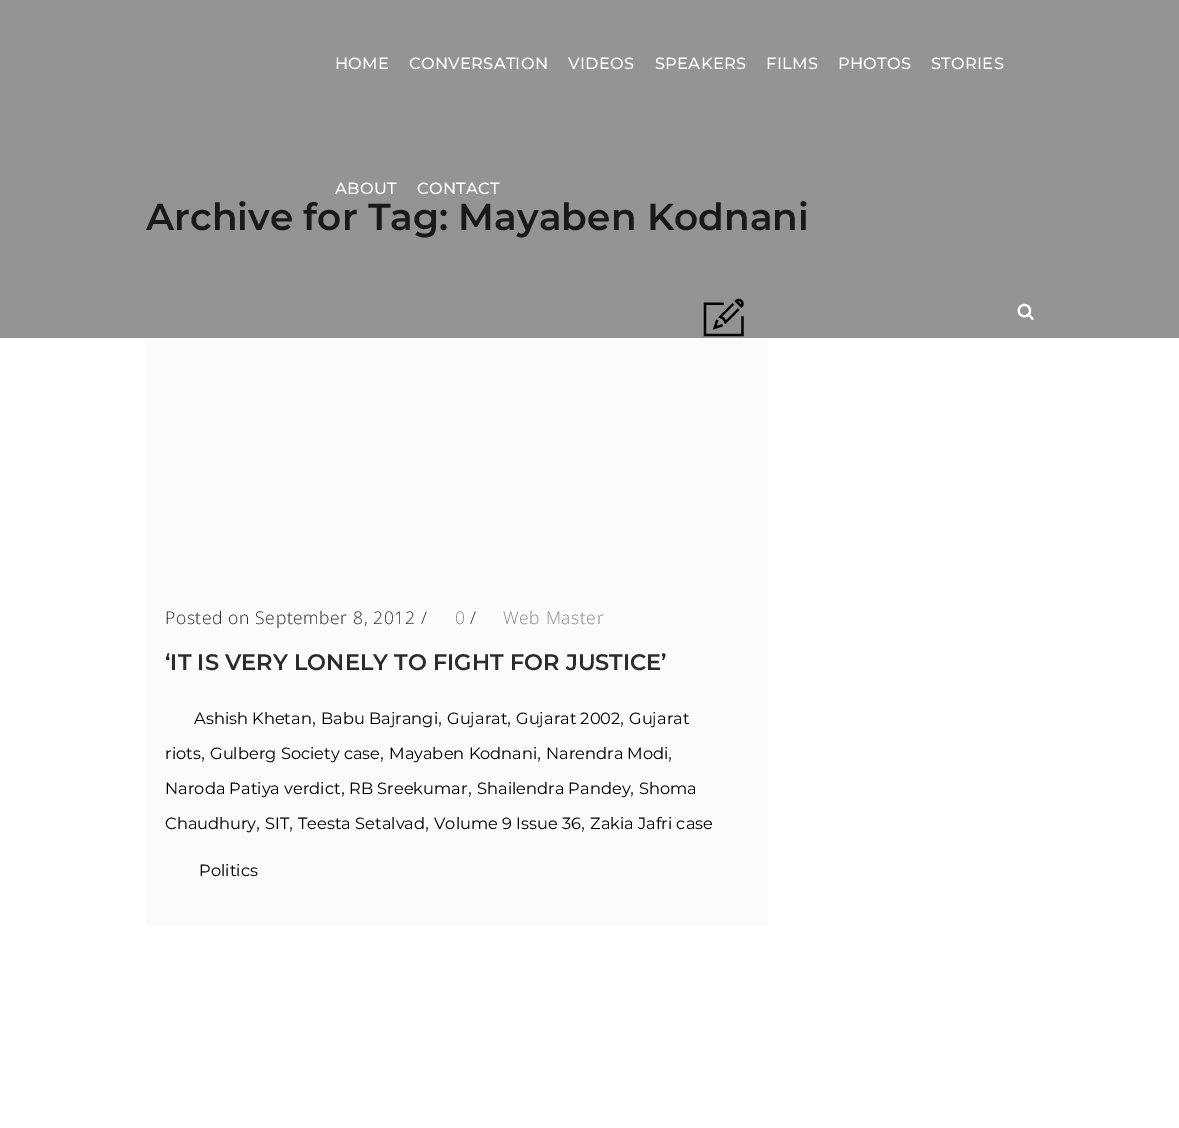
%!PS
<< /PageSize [1179 1128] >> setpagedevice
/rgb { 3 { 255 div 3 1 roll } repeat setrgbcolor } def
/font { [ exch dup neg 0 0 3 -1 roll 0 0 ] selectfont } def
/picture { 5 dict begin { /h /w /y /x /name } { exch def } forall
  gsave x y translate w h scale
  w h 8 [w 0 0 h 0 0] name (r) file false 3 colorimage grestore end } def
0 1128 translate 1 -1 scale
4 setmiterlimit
255 255 255 rgb
0 0 1179 1128 rectfill
148 148 148 rgb
0 0 1179 338 rectfill
(img/1.rgb) 1017 303 17 17 picture
251 251 251 rgb
146 338 622 587 rectfill
(img/2.rgb) 703 298 41 39 picture
/Montserrat-Medium 16.25 font
255 255 255 rgb
335 69 moveto 0.25 0 (HOME) ashow
409 69 moveto 0.25 0 (CONVERSATION) ashow
568 69 moveto 0.25 0 (VIDEOS) ashow
655 69 moveto 0.25 0 (SPEAKERS) ashow
766 69 moveto 0.25 0 (FILMS) ashow
838 69 moveto 0.25 0 (PHOTOS) ashow
931 69 moveto 0.25 0 (STORIES) ashow
335 194 moveto 0.25 0 (ABOUT) ashow
417 194 moveto 0.25 0 (CONTACT) ashow
/Montserrat-SemiBold 37.5 font
25 25 25 rgb
146 230 moveto (Archive for Tag: Mayaben Kodnani) show
/OpenSans-Light 17.5 font
43 43 43 rgb
165 624 moveto 0.6 0 (Posted on September 8, 2012 /) ashow
136 136 136 rgb
455 624 moveto 0.6 0 (0) ashow
43 43 43 rgb
470 624 moveto 0.6 0 (/) ashow
136 136 136 rgb
503 624 moveto 0.6 0 (Web Master) ashow
/Montserrat-SemiBold 22.5 font
43 43 43 rgb
165 670 moveto (‘IT IS VERY LONELY TO FIGHT FOR JUSTICE’) show
/Montserrat-Regular 16.25 font
0 0 0 rgb
194 724 moveto (Ashish Khetan) show
/Montserrat-Regular 19 font
43 43 43 rgb
312 724 moveto (,) show
/Montserrat-Regular 16.25 font
0 0 0 rgb
321 724 moveto (Babu Bajrangi) show
/Montserrat-Regular 19 font
43 43 43 rgb
438 724 moveto (,) show
/Montserrat-Regular 16.25 font
0 0 0 rgb
447 724 moveto (Gujarat) show
/Montserrat-Regular 19 font
43 43 43 rgb
507 724 moveto (,) show
/Montserrat-Regular 16.25 font
0 0 0 rgb
516 724 moveto (Gujarat 2002) show
/Montserrat-Regular 19 font
43 43 43 rgb
620 724 moveto (,) show
/Montserrat-Regular 16.25 font
0 0 0 rgb
629 724 moveto (Gujarat) show
165 759 moveto (riots) show
/Montserrat-Regular 19 font
43 43 43 rgb
201 759 moveto (,) show
/Montserrat-Regular 16.25 font
0 0 0 rgb
210 759 moveto (Gulberg Society case) show
/Montserrat-Regular 19 font
43 43 43 rgb
380 759 moveto (,) show
/Montserrat-Regular 16.25 font
0 0 0 rgb
389 759 moveto (Mayaben Kodnani) show
/Montserrat-Regular 19 font
43 43 43 rgb
537 759 moveto (,) show
/Montserrat-Regular 16.25 font
0 0 0 rgb
546 759 moveto (Narendra Modi) show
/Montserrat-Regular 19 font
43 43 43 rgb
668 759 moveto (,) show
/Montserrat-Regular 16.25 font
0 0 0 rgb
165 794 moveto (Naroda Patiya verdict) show
/Montserrat-Regular 19 font
43 43 43 rgb
341 794 moveto (,) show
/Montserrat-Regular 16.25 font
0 0 0 rgb
349 794 moveto (RB Sreekumar) show
/Montserrat-Regular 19 font
43 43 43 rgb
468 794 moveto (,) show
/Montserrat-Regular 16.25 font
0 0 0 rgb
477 794 moveto (Shailendra Pandey) show
/Montserrat-Regular 19 font
43 43 43 rgb
630 794 moveto (,) show
/Montserrat-Regular 16.25 font
0 0 0 rgb
639 794 moveto (Shoma) show
165 829 moveto (Chaudhury) show
/Montserrat-Regular 19 font
43 43 43 rgb
256 829 moveto (,) show
/Montserrat-Regular 16.25 font
0 0 0 rgb
265 829 moveto (SIT) show
/Montserrat-Regular 19 font
43 43 43 rgb
289 829 moveto (,) show
/Montserrat-Regular 16.25 font
0 0 0 rgb
298 829 moveto (Teesta Setalvad) show
/Montserrat-Regular 19 font
43 43 43 rgb
425 829 moveto (,) show
/Montserrat-Regular 16.25 font
0 0 0 rgb
434 829 moveto (Volume 9 Issue 36) show
/Montserrat-Regular 19 font
43 43 43 rgb
581 829 moveto (,) show
/Montserrat-Regular 16.25 font
0 0 0 rgb
590 829 moveto (Zakia Jafri case) show
199 876 moveto (Politics) show
showpage
